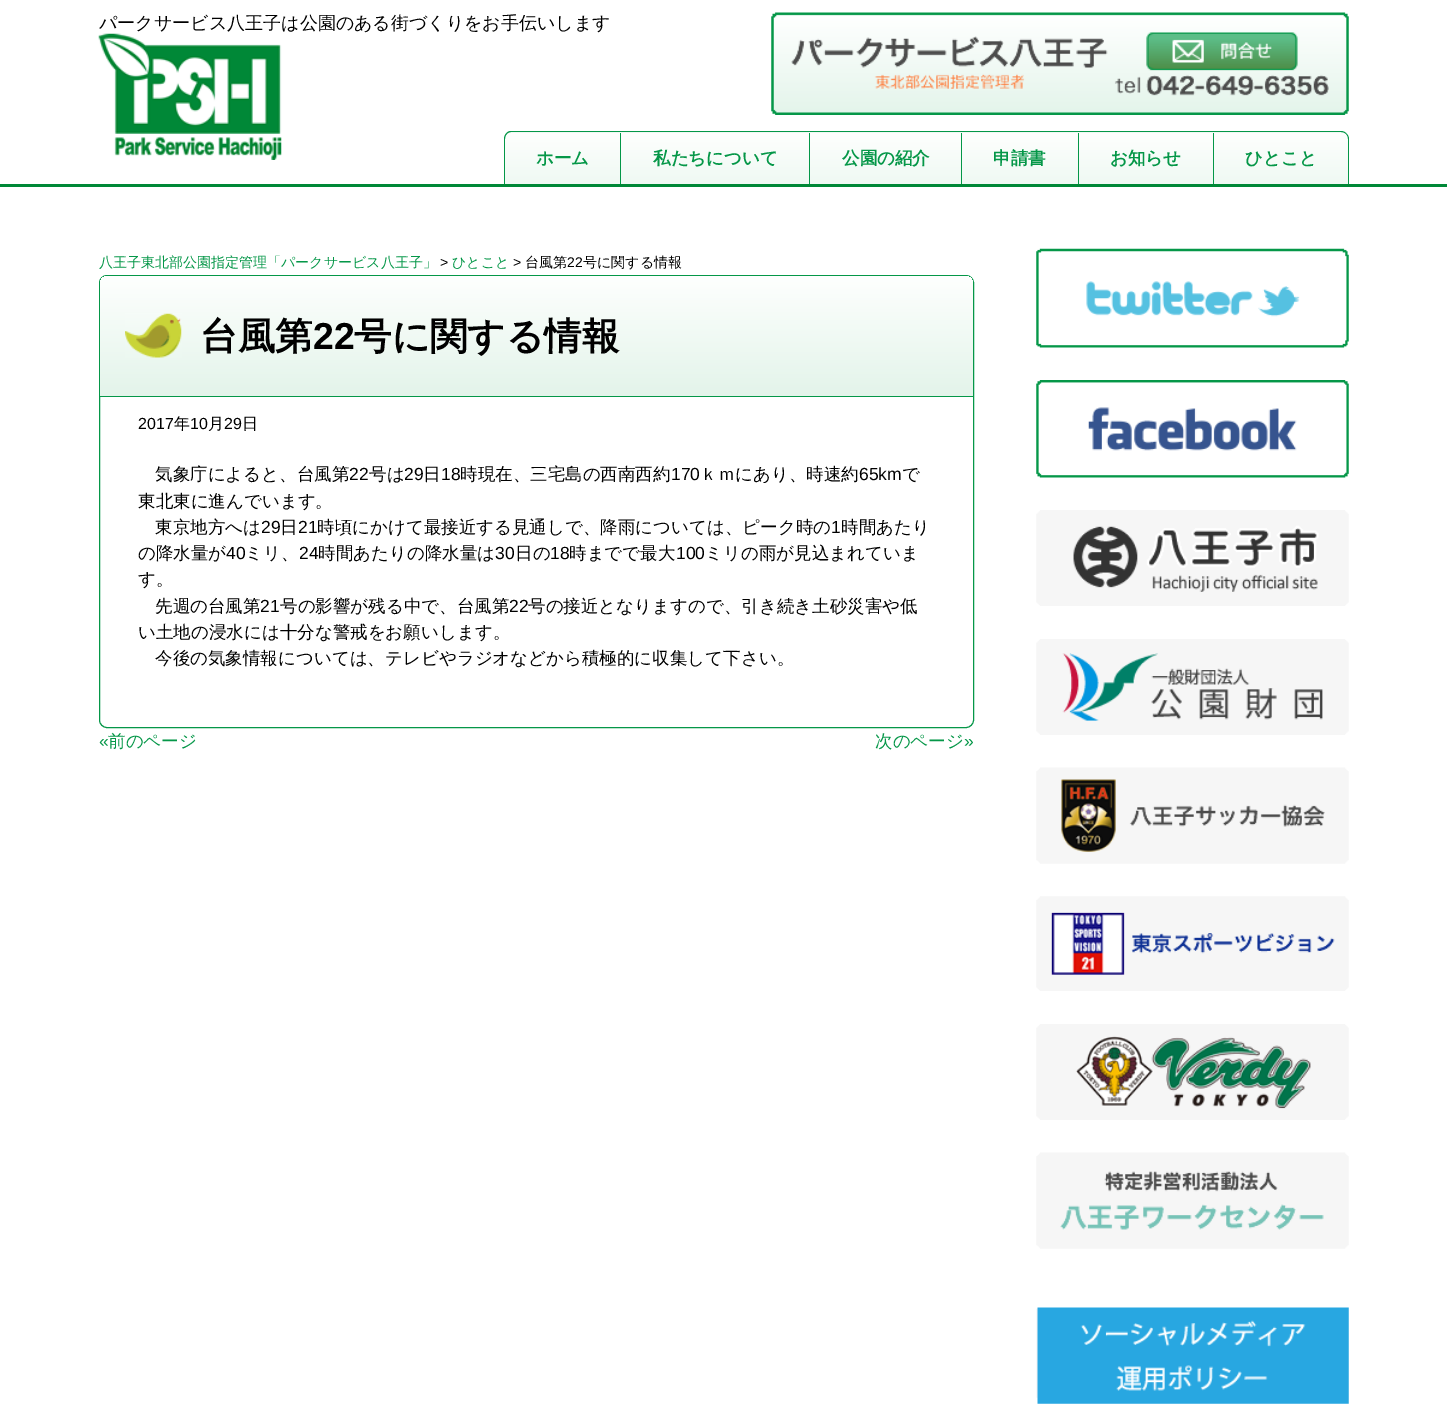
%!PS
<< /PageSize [1447 1418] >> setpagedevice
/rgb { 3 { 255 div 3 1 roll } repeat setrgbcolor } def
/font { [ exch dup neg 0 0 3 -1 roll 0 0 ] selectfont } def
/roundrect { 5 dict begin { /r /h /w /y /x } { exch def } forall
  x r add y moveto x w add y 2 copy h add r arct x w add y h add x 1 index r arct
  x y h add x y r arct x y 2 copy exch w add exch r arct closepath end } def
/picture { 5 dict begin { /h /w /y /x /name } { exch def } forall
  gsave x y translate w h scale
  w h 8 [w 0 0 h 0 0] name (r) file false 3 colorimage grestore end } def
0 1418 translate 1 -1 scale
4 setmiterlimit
255 255 255 rgb
0 0 1447 1418 rectfill
0 136 55 rgb
0 184 1447 3 rectfill
(img/1.rgb) 98 33 184 127 picture
(img/2.rgb) 771 12 578 103 picture
gsave
512 131 moveto 1341 131 lineto 1345.5 131 1349 134.5 1349 139 curveto 1349 184 lineto 504 184 lineto 504 139 lineto 504 134.5 507.5 131 512 131 curveto closepath clip newpath
gsave 504 131 moveto 1349 131 lineto 1349 133 lineto 504 133 lineto closepath clip newpath
<< /ShadingType 2 /ColorSpace /DeviceRGB /Coords [926 81 926 133] /Extend [true true] /Function << /FunctionType 2 /Domain [0 1] /C0 [0.996 1 0.996] /C1 [0.937 0.976 0.953] /N 1 >> >> shfill grestore
gsave 504 133 moveto 1349 133 lineto 1349 184 lineto 504 184 lineto closepath clip newpath
<< /ShadingType 2 /ColorSpace /DeviceRGB /Coords [926 132 926 184] /Extend [true true] /Function << /FunctionType 2 /Domain [0 1] /C0 [0.996 1 0.996] /C1 [0.937 0.976 0.953] /N 1 >> >> shfill grestore
grestore
4 151 72 rgb
511 131 moveto 1341 131 lineto 1345 131 1349 135 1349 139 curveto 1349 184 lineto 504 184 lineto 504 139 lineto 504 135 507 131 511 131 curveto closepath 511 132 moveto 1341 132 lineto 1345 132 1348 135 1348 139 curveto 1348 184 lineto 505 184 lineto 505 139 lineto 505 135 508 132 511 132 curveto closepath eofill
[
  [620 133 1 51 4 151 72]
  [809 133 1 51 4 151 72]
  [961 133 1 51 4 151 72]
  [1078 133 1 51 4 151 72]
  [1213 133 1 51 4 151 72]
] { aload pop rgb rectfill } forall
5 151 72 rgb
99.5 275.5 874 452 7.5 roundrect stroke
gsave 108 276 moveto 965 276 lineto 969.5 276 973 279.5 973 284 curveto 973 396 lineto 100 396 lineto 100 284 lineto 100 279.5 103.5 276 108 276 curveto closepath clip newpath
<< /ShadingType 2 /ColorSpace /DeviceRGB /Coords [536 276 536 396] /Extend [true true] /Function << /FunctionType 2 /Domain [0 1] /C0 [0.996 1 0.996] /C1 [0.89 0.957 0.918] /N 1 >> >> shfill grestore
100 396 873 1 rectfill
(img/3.rgb) 125 313 57 45 picture
(img/4.rgb) 1036 248 313 100 picture
(img/5.rgb) 1036 380 313 98 picture
(img/6.rgb) 1036 510 313 96 picture
(img/7.rgb) 1036 639 313 96 picture
(img/8.rgb) 1036 767 313 97 picture
(img/9.rgb) 1036 896 313 95 picture
(img/10.rgb) 1036 1024 313 96 picture
(img/11.rgb) 1036 1152 313 97 picture
(img/12.rgb) 1036 1307 313 97 picture
/WenQuanYiZenHei-Medium 18 font
0 0 0 rgb
99 29 moveto (パークサービス八王子は公園のある街づくりをお手伝いします) show
/WenQuanYiZenHei-Bold 17.5 font
5 151 72 rgb
[
  [(ホーム) 536 164]
  [(私たちについて) 653 164]
  [(公園の紹介) 842 164]
  [(申請書) 993 164]
  [(お知らせ) 1110 164]
  [(ひとこと) 1245 164]
] { aload pop moveto show } forall
/WenQuanYiZenHei-Medium 14 font
99 267 moveto (八王子東北部公園指定管理「パークサービス八王子」) show
/LiberationSans-Regular 14 font
0 0 0 rgb
440 267 moveto (>) show
/WenQuanYiZenHei-Medium 14 font
5 151 72 rgb
452 267 moveto (ひとこと) show
/LiberationSans-Regular 14 font
0 0 0 rgb
513 267 moveto (>) show
/WenQuanYiZenHei-Medium 14 font
525 267 moveto (台風第) show
/LiberationSans-Regular 14 font
567 267 moveto (22) show
/WenQuanYiZenHei-Medium 14 font
583 267 moveto (号に関する情報) show
/WenQuanYiZenHei-Bold 37.5 font
200 349 moveto (台風第) show
/LiberationSans-Bold 37.5 font
313 349 moveto (22) show
/WenQuanYiZenHei-Bold 37.5 font
354 349 moveto (号に関する情報) show
/LiberationSans-Regular 16 font
138 429 moveto (2017) show
/WenQuanYiZenHei-Medium 16 font
174 429 moveto (年) show
/LiberationSans-Regular 16 font
190 429 moveto (10) show
/WenQuanYiZenHei-Medium 16 font
208 429 moveto (月) show
/LiberationSans-Regular 16 font
224 429 moveto (29) show
/WenQuanYiZenHei-Medium 16 font
242 429 moveto (日) show
/WenQuanYiZenHei-Medium 17.5 font
155 480 moveto (気象庁によると、台風第) show
/LiberationSans-Regular 17.5 font
349 480 moveto (22) show
/WenQuanYiZenHei-Medium 17.5 font
369 480 moveto (号は) show
/LiberationSans-Regular 17.5 font
404 480 moveto (29) show
/WenQuanYiZenHei-Medium 17.5 font
423 480 moveto (日) show
/LiberationSans-Regular 17.5 font
441 480 moveto (18) show
/WenQuanYiZenHei-Medium 17.5 font
460 480 moveto (時現在、三宅島の西南西約) show
/LiberationSans-Regular 17.5 font
671 480 moveto (170) show
/WenQuanYiZenHei-Medium 17.5 font
700 480 moveto (ｋｍにあり、時速約) show
/LiberationSans-Regular 17.5 font
859 480 moveto (65km) show
/WenQuanYiZenHei-Medium 17.5 font
[
  [(で) 902 480]
  [(東北東に進んでいます。) 138 507]
  [(東京地方へは) 155 533]
] { aload pop moveto show } forall
/LiberationSans-Regular 17.5 font
261 533 moveto (29) show
/WenQuanYiZenHei-Medium 17.5 font
280 533 moveto (日) show
/LiberationSans-Regular 17.5 font
298 533 moveto (21) show
/WenQuanYiZenHei-Medium 17.5 font
317 533 moveto (時頃にかけて最接近する見通しで、降雨については、ピーク時の) show
/LiberationSans-Regular 17.5 font
831 533 moveto (1) show
/WenQuanYiZenHei-Medium 17.5 font
841 533 moveto (時間あたり) show
138 559 moveto (の降水量が) show
/LiberationSans-Regular 17.5 font
226 559 moveto (40) show
/WenQuanYiZenHei-Medium 17.5 font
245 559 moveto (ミリ、) show
/LiberationSans-Regular 17.5 font
299 559 moveto (24) show
/WenQuanYiZenHei-Medium 17.5 font
318 559 moveto (時間あたりの降水量は) show
/LiberationSans-Regular 17.5 font
495 559 moveto (30) show
/WenQuanYiZenHei-Medium 17.5 font
515 559 moveto (日の) show
/LiberationSans-Regular 17.5 font
550 559 moveto (18) show
/WenQuanYiZenHei-Medium 17.5 font
569 559 moveto (時までで最大) show
/LiberationSans-Regular 17.5 font
676 559 moveto (100) show
/WenQuanYiZenHei-Medium 17.5 font
[
  [(ミリの雨が見込まれていま) 705 559]
  [(す。) 138 585]
  [(先週の台風第) 155 612]
] { aload pop moveto show } forall
/LiberationSans-Regular 17.5 font
260 612 moveto (21) show
/WenQuanYiZenHei-Medium 17.5 font
280 612 moveto (号の影響が残る中で、台風第) show
/LiberationSans-Regular 17.5 font
509 612 moveto (22) show
/WenQuanYiZenHei-Medium 17.5 font
[
  [(号の接近となりますので、引き続き土砂災害や低) 528 612]
  [(い土地の浸水には十分な警戒をお願いします。) 138 638]
  [(今後の気象情報については、テレビやラジオなどから積極的に収集して下さい。) 155 664]
] { aload pop moveto show } forall
/LiberationSans-Regular 17.5 font
5 151 72 rgb
99 747 moveto («) show
/WenQuanYiZenHei-Medium 17.5 font
108 747 moveto (前のページ) show
875 747 moveto (次のページ) show
/LiberationSans-Regular 17.5 font
964 747 moveto (») show
showpage
